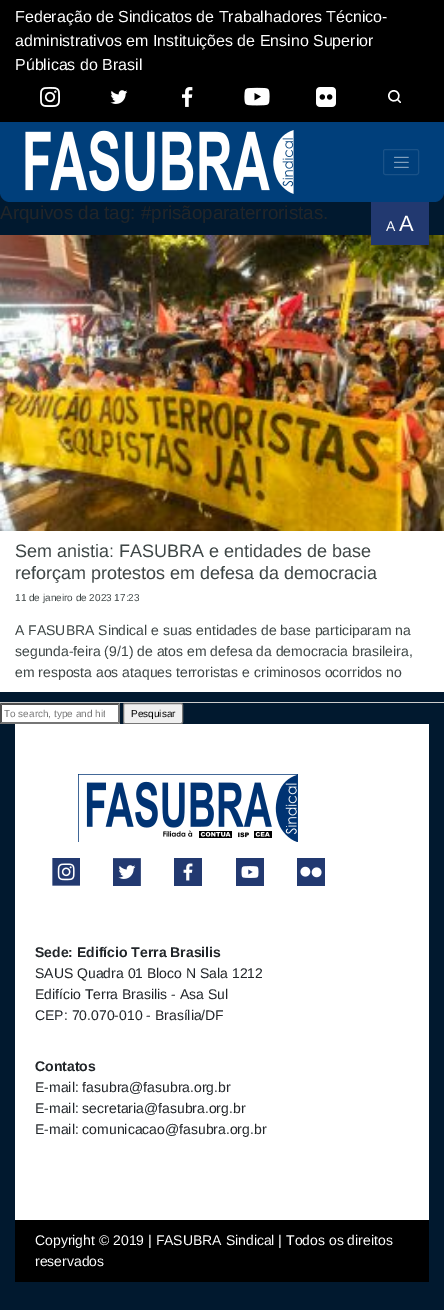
%!PS
<< /PageSize [444 1310] >> setpagedevice
/rgb { 3 { 255 div 3 1 roll } repeat setrgbcolor } def
/font { [ exch dup neg 0 0 3 -1 roll 0 0 ] selectfont } def
/roundrect { 5 dict begin { /r /h /w /y /x } { exch def } forall
  x r add y moveto x w add y 2 copy h add r arct x w add y h add x 1 index r arct
  x y h add x y r arct x y 2 copy exch w add exch r arct closepath end } def
/picture { 5 dict begin { /h /w /y /x /name } { exch def } forall
  gsave x y translate w h scale
  w h 8 [w 0 0 h 0 0] name (r) file false 3 colorimage grestore end } def
0 1310 translate 1 -1 scale
4 setmiterlimit
1 25 47 rgb
0 0 444 1310 rectfill
0 0 0 rgb
0 0 444 122 rectfill
(img/1.rgb) 40 87 20 20 picture
(img/2.rgb) 110 90 18 14 picture
(img/3.rgb) 182 87 11 20 picture
(img/4.rgb) 244 87 26 19 picture
(img/5.rgb) 316 87 20 20 picture
(img/6.rgb) 388 90 13 13 picture
0 63 123 rgb
0 122 moveto 444 122 lineto 444 192 lineto 444 197.5 439.5 202 434 202 curveto 10 202 lineto 4.5 202 0 197.5 0 192 curveto closepath fill
(img/7.rgb) 25 130 269 64 picture
26 82 136 rgb
383.5 149.5 35 25 2 roundrect stroke
(img/8.rgb) 394 156 15 12 picture
(img/9.rgb) 0 235 444 296 picture
[
  [371 202 58 43 34 57 112]
  [0 702 444 1 204 204 204]
  [0 531 444 161 255 255 255]
  [0 703 120 21 255 255 255]
] { aload pop rgb rectfill } forall
79 79 79 rgb
0 703 moveto 120 703 lineto 118 705 lineto 2 705 lineto closepath fill
118 118 118 rgb
120 703 moveto 120 724 lineto 118 722 lineto 118 705 lineto closepath fill
120 724 moveto 0 724 lineto 2 722 lineto 118 722 lineto closepath fill
79 79 79 rgb
0 724 moveto 0 703 lineto 2 705 lineto 2 722 lineto closepath fill
239 239 239 rgb
123.5 703.5 59 20 1.5 roundrect gsave fill grestore
118 118 118 rgb
stroke
255 255 255 rgb
15 724 414 496 rectfill
(img/10.rgb) 78 774 220 68 picture
(img/11.rgb) 52 858 28 28 picture
(img/12.rgb) 113 858 28 28 picture
(img/13.rgb) 174 858 28 28 picture
(img/14.rgb) 236 858 28 28 picture
(img/15.rgb) 297 858 28 28 picture
0 0 0 rgb
15 1220 414 62 rectfill
/LiberationSans-Regular 16 font
255 255 255 rgb
[
  [(Federação de Sindicatos de Trabalhadores Técnico-) 15 22]
  [(administrativos em Instituições de Ensino Superior) 15 46]
  [(Públicas do Brasil) 15 70]
] { aload pop moveto show } forall
/LiberationSans-Regular 14 font
386 231 moveto (A) show
/LiberationSans-Regular 22 font
399 231 moveto (A) show
/LiberationSans-Regular 18.75 font
33 37 41 rgb
0 219 moveto (Arquivos da tag: #prisãoparaterroristas.) show
/LiberationSans-Regular 18 font
62 70 70 rgb
15 557 moveto (Sem anistia: FASUBRA e entidades de base) show
15 579 moveto (reforçam protestos em defesa da democracia) show
/LiberationSans-Regular 10 font
15 601 moveto (11 de janeiro de 2023 17:23) show
/LiberationSans-Regular 14 font
[
  [(A FASUBRA Sindical e suas entidades de base participaram na) 15 635]
  [(segunda-feira \(9/1\) de atos em defesa da democracia brasileira,) 15 656]
  [(em resposta aos ataques terroristas e criminosos ocorridos no) 15 677]
] { aload pop moveto show } forall
gsave
4 708 101 11 rectclip
/LiberationSans-Regular 10 font
117 117 117 rgb
4 717 moveto (To search, type and hit) show
grestore
/LiberationSans-Regular 10 font
0 0 0 rgb
131 717 moveto (Pesquisar) show
/LiberationSans-Bold 14 font
33 37 41 rgb
35 957 moveto (Sede: Edifício Terra Brasilis) show
/LiberationSans-Regular 14 font
[
  [(SAUS Quadra 01 Bloco N Sala 1212) 35 978]
  [(Edifício Terra Brasilis - Asa Sul) 35 999]
  [(CEP: 70.070-010 - Brasília/DF) 35 1020]
] { aload pop moveto show } forall
/LiberationSans-Bold 14 font
35 1071 moveto (Contatos) show
/LiberationSans-Regular 14 font
[
  [(E-mail: fasubra@fasubra.org.br) 35 1092]
  [(E-mail: secretaria@fasubra.org.br) 35 1113]
  [(E-mail: comunicacao@fasubra.org.br) 35 1134]
] { aload pop moveto show } forall
255 255 255 rgb
35 1245 moveto (Copyright © 2019 | FASUBRA Sindical | Todos os direitos) show
35 1266 moveto (reservados) show
showpage
